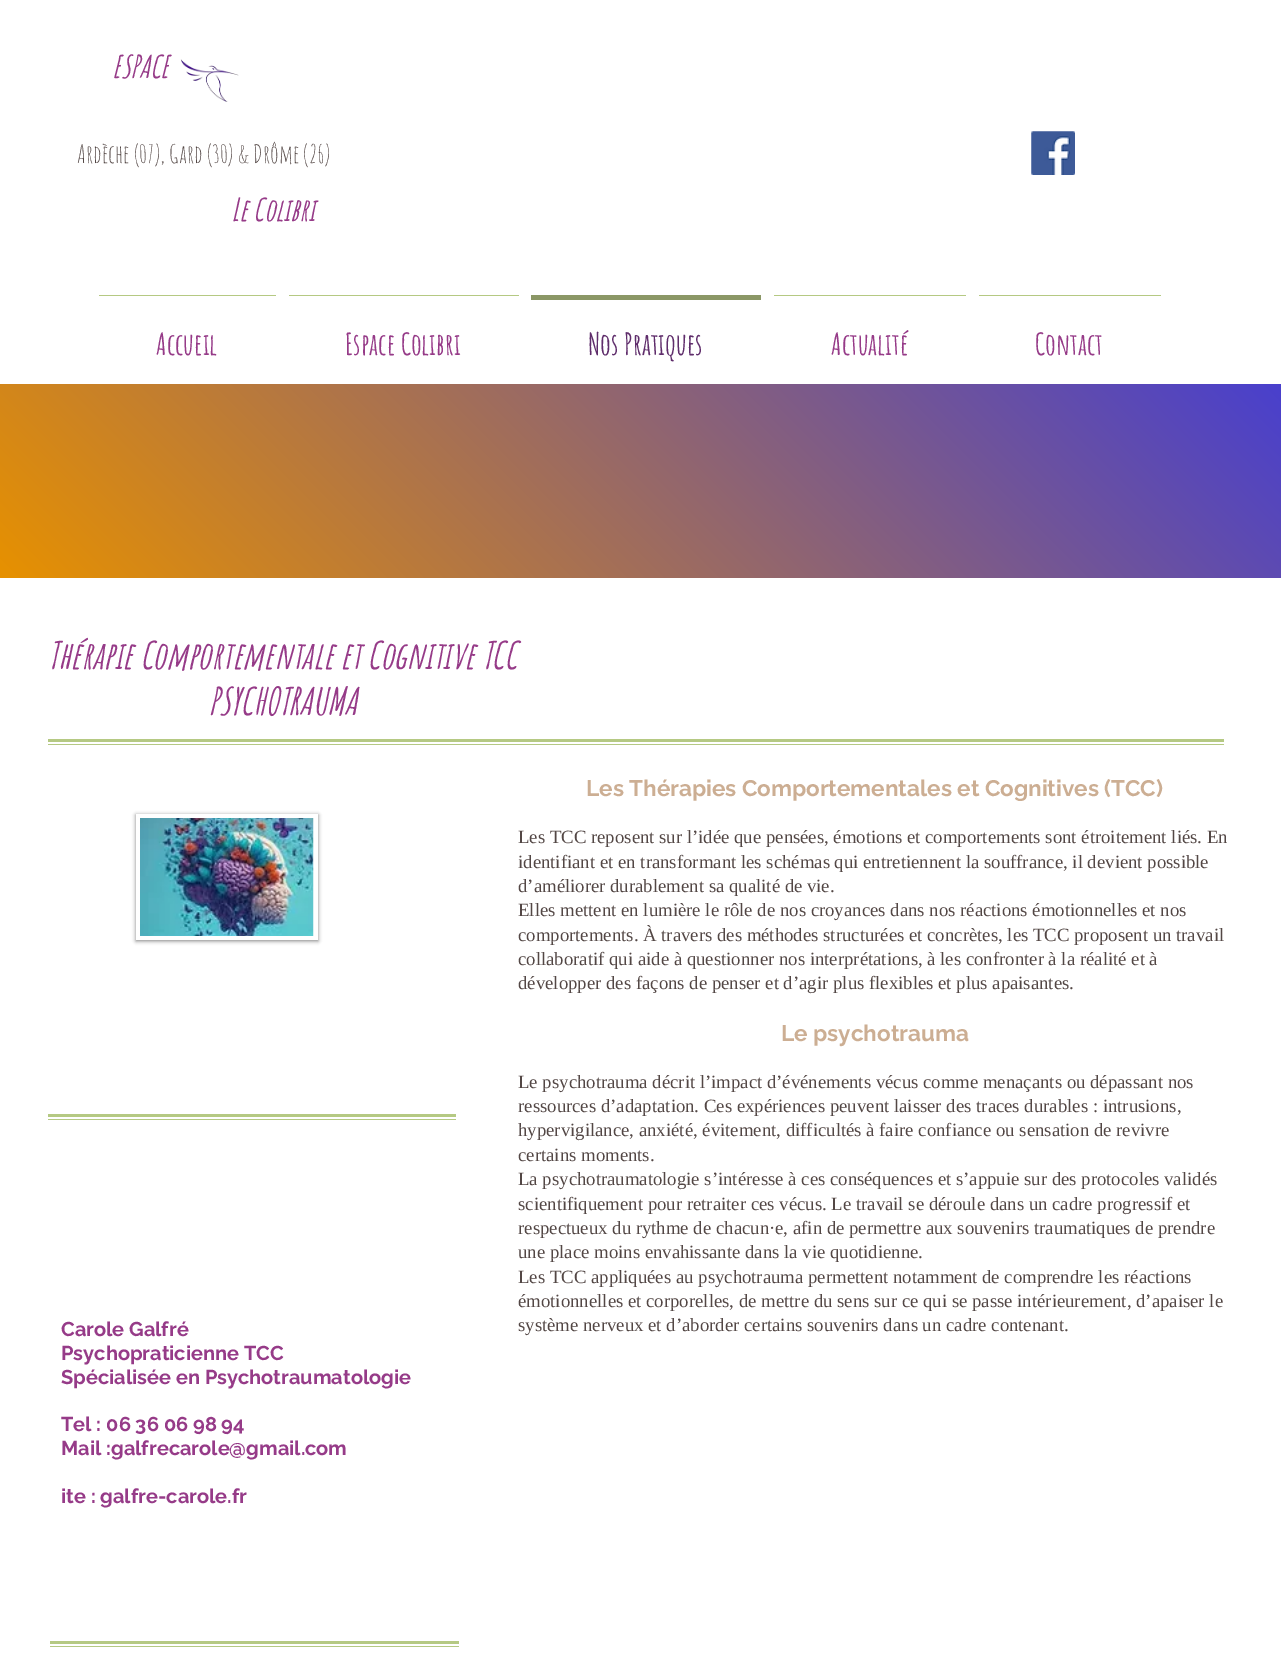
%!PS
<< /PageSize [1281 1666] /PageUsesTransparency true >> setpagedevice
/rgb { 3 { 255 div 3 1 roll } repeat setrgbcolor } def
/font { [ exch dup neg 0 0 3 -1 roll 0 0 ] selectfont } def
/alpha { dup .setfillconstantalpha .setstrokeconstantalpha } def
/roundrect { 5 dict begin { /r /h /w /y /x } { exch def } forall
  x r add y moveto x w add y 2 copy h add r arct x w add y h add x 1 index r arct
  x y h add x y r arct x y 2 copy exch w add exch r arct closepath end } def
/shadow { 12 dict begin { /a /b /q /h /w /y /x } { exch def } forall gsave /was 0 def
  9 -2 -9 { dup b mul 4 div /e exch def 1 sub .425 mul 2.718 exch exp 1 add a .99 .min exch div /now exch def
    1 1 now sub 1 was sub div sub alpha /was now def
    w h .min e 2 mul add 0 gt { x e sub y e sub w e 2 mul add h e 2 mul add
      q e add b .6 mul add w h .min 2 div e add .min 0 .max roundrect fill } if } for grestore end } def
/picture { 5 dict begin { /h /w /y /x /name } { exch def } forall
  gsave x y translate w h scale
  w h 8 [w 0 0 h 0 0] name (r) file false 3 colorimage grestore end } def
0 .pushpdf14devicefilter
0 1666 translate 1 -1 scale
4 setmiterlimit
255 255 255 rgb
0 0 1281 1666 rectfill
(img/1.rgb) 180 59 59 43 picture
(img/2.rgb) 1031 131 44 44 picture
[
  [99 295 177 1 181 201 131]
  [289 295 230 1 181 201 131]
  [531 295 230 5 139 151 102]
  [774 295 192 1 181 201 131]
  [979 295 182 1 181 201 131]
] { aload pop rgb rectfill } forall
gsave 0 384 moveto 1281 384 lineto 1281 578 lineto 0 578 lineto closepath clip newpath
<< /ShadingType 2 /ColorSpace /DeviceRGB /Coords [272 849 1009 112] /Extend [true true] /Function << /FunctionType 2 /Domain [0 1] /C0 [0.906 0.569 0] /C1 [0.286 0.251 0.804] /N 1 >> >> shfill grestore
48 739 1176 3 rectfill
48 744 1176 1 rectfill
0 0 0 rgb
136 815 182 126 0 2 0.5 shadow
255 255 255 rgb
136 814 182 126 rectfill
(img/3.rgb) 140 818 174 118 picture
[
  [48 1114 408 3 181 201 131]
  [48 1119 408 1 181 201 131]
  [50 1641 409 3 181 201 131]
  [50 1646 409 1 181 201 131]
] { aload pop rgb rectfill } forall
/AmaticSC-BoldItalic 31 font
150 59 136 rgb
112 78 moveto (ESPACE) show
231 221 moveto (Le Colibri) show
/AmaticSC-Regular 25 font
83 71 69 rgb
77 163 moveto (Ardèche \(07\), Gard \(30\) & Drôme \(26\)) show
/AmaticSC-Bold 30 font
150 59 136 rgb
156 355 moveto (Accueil) show
345 355 moveto (Espace Colibri) show
95 45 107 rgb
588 355 moveto (Nos Pratiques) show
150 59 136 rgb
831 355 moveto (Actualité) show
1035 355 moveto (Contact) show
/AmaticSC-BoldItalic 37.5 font
48 669 moveto (Thérapie Comportementale et Cognitive TCC) show
208 715 moveto (PSYCHOTRAUMA) show
/Raleway-Bold 22.5 font
204 174 147 rgb
586 796 moveto (Les Thérapies Comportementales et Cognitives \(TCC\)) show
/LiberationSerif-Regular 18.75 font
83 71 69 rgb
[
  [(Les TCC reposent sur l’idée que pensées, émotions et comportements sont étroitement liés. En) 518 843]
  [(identifiant et en transformant les schémas qui entretiennent la souffrance, il devient possible) 518 868]
  [(d’améliorer durablement sa qualité de vie.) 518 892]
  [(Elles mettent en lumière le rôle de nos croyances dans nos réactions émotionnelles et nos) 518 916]
  [(comportements. À travers des méthodes structurées et concrètes, les TCC proposent un travail) 518 941]
  [(collaboratif qui aide à questionner nos interprétations, à les confronter à la réalité et à) 518 965]
  [(développer des façons de penser et d’agir plus flexibles et plus apaisantes.) 518 989]
] { aload pop moveto show } forall
/Raleway-Bold 22.5 font
204 174 147 rgb
781 1041 moveto (Le psychotrauma) show
/LiberationSerif-Regular 18.75 font
83 71 69 rgb
[
  [(Le psychotrauma décrit l’impact d’événements vécus comme menaçants ou dépassant nos) 518 1088]
  [(ressources d’adaptation. Ces expériences peuvent laisser des traces durables : intrusions,) 518 1112]
  [(hypervigilance, anxiété, évitement, difficultés à faire confiance ou sensation de revivre) 518 1136]
  [(certains moments.) 518 1161]
  [(La psychotraumatologie s’intéresse à ces conséquences et s’appuie sur des protocoles validés) 518 1185]
  [(scientifiquement pour retraiter ces vécus. Le travail se déroule dans un cadre progressif et) 518 1210]
  [(respectueux du rythme de chacun·e, afin de permettre aux souvenirs traumatiques de prendre) 518 1234]
  [(une place moins envahissante dans la vie quotidienne.) 518 1258]
  [(Les TCC appliquées au psychotrauma permettent notamment de comprendre les réactions) 518 1283]
  [(émotionnelles et corporelles, de mettre du sens sur ce qui se passe intérieurement, d’apaiser le) 518 1307]
  [(système nerveux et d’aborder certains souvenirs dans un cadre contenant.) 518 1331]
] { aload pop moveto show } forall
/Raleway-Bold 20 font
150 59 136 rgb
[
  [(Carole Galfré) 61 1336]
  [(Psychopraticienne TCC) 61 1360]
  [(Spécialisée en Psychotraumatologie) 61 1384]
  [(Tel : 06 36 06 98 94) 61 1431]
  [(Mail :galfrecarole@gmail.com) 61 1455]
  [(ite : galfre-carole.fr) 61 1503]
] { aload pop moveto show } forall
.poppdf14devicefilter showpage
